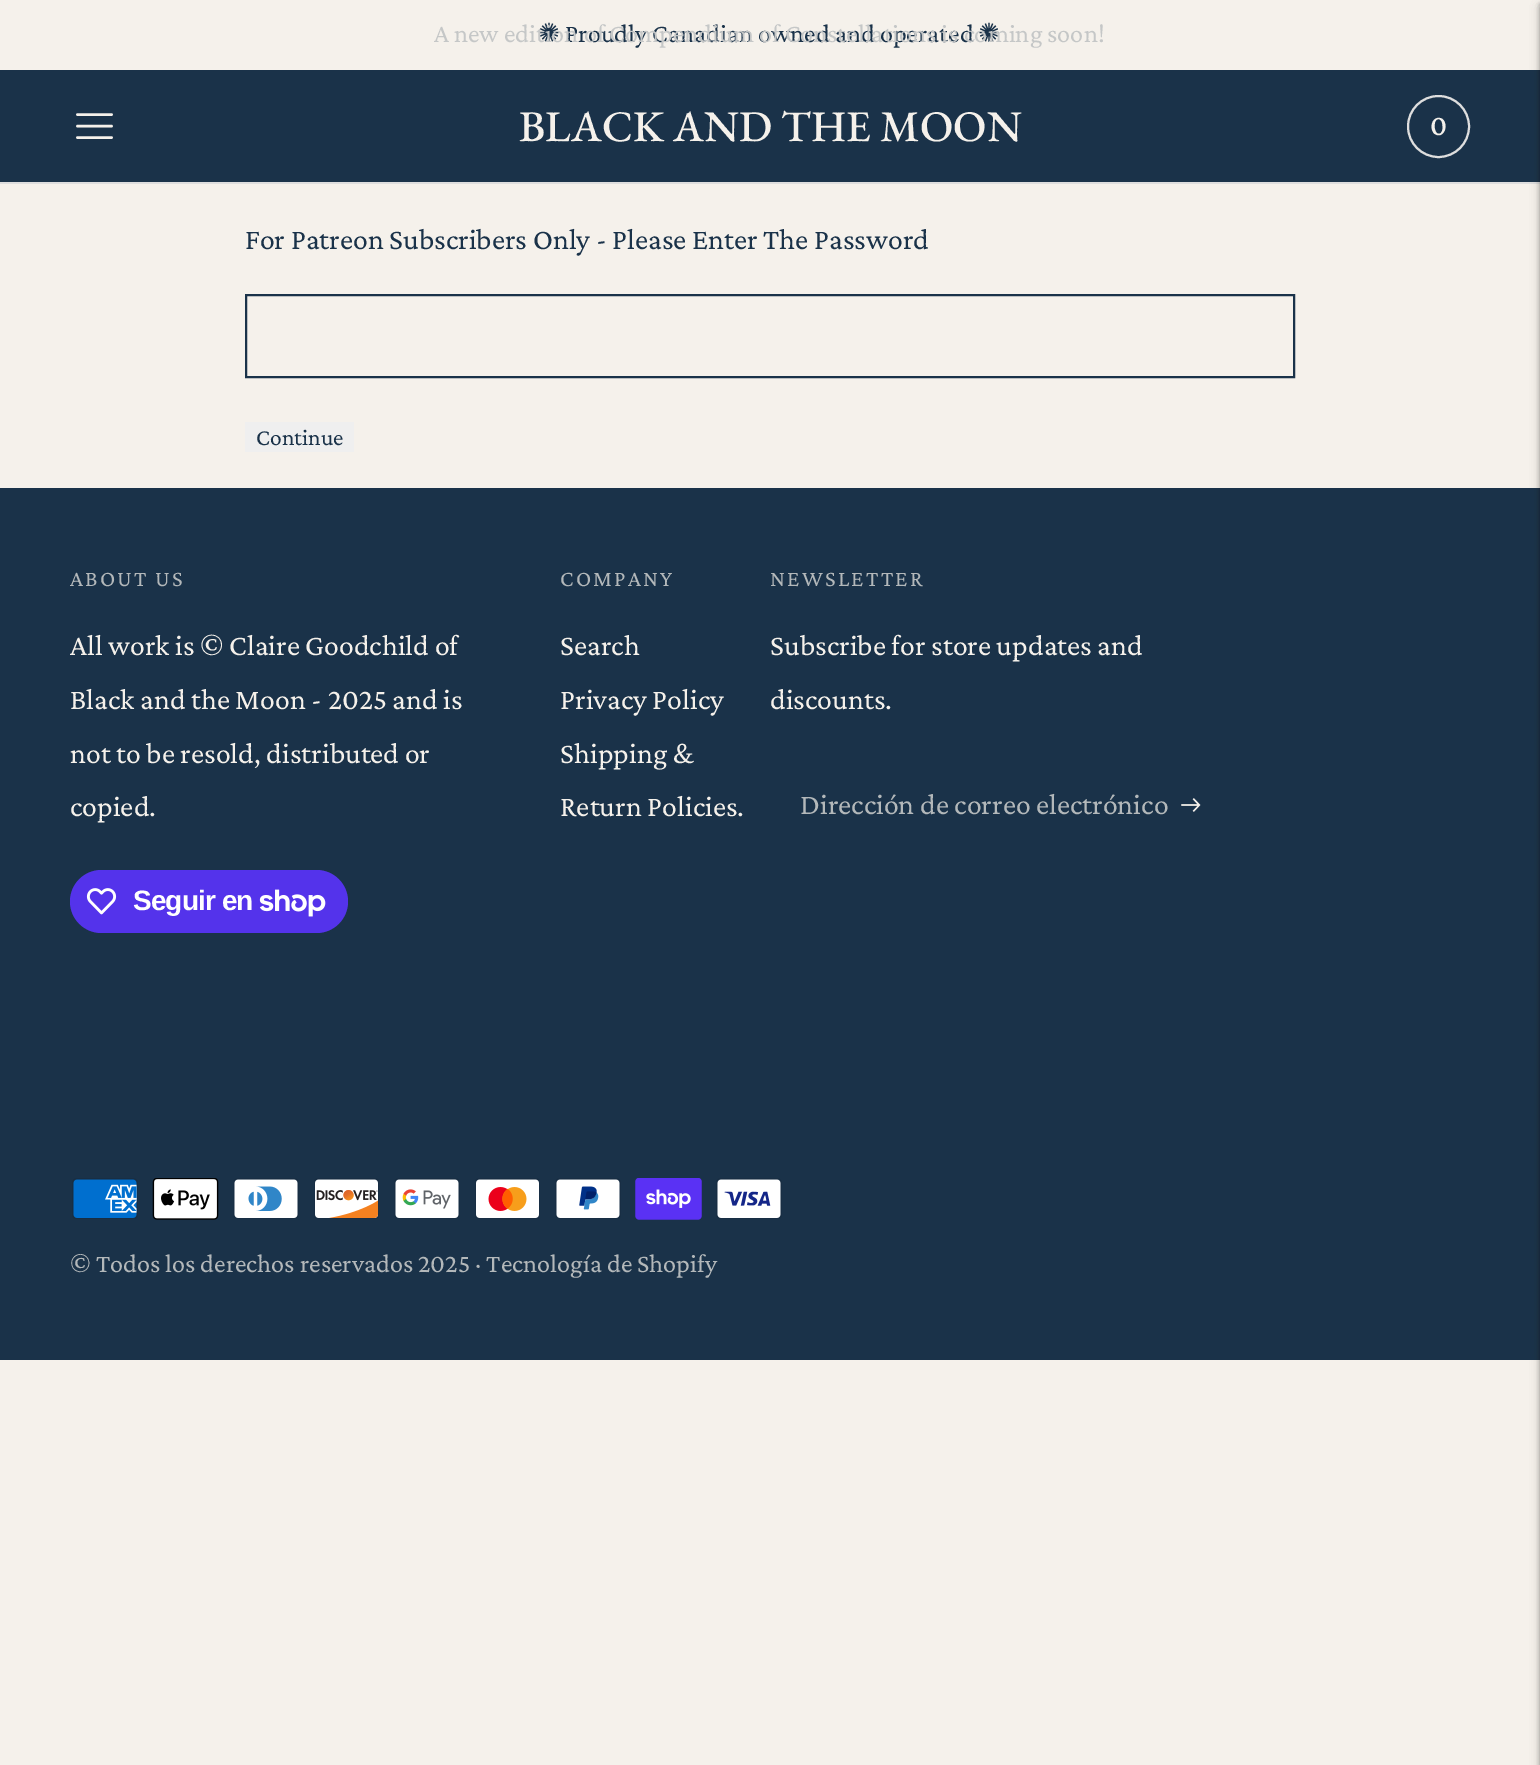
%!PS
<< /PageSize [1540 1765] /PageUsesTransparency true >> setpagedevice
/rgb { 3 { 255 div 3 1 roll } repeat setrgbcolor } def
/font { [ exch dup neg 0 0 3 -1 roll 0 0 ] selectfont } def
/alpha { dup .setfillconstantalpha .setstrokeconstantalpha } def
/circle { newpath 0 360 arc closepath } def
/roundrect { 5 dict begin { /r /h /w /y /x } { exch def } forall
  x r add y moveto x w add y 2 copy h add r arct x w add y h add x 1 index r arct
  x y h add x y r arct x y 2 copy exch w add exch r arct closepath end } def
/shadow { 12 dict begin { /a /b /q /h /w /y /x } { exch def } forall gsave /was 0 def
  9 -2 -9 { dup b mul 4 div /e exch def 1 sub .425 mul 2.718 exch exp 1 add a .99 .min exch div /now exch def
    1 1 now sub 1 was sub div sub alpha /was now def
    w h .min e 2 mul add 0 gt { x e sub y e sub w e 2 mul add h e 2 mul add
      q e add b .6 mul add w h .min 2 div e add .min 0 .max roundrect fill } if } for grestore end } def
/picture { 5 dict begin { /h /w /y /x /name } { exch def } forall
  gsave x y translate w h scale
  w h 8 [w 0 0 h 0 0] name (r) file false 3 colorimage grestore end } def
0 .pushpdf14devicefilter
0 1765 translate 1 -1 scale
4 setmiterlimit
245 241 235 rgb
0 0 1540 1765 rectfill
[
  [0 70 1540 112 26 50 73]
  [0 182 1540 2 222 222 222]
  [0 488 1540 872 26 50 73]
] { aload pop rgb rectfill } forall
0 0 0 rgb
1540 7 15 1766 0 5 0.1 shadow
1540 4 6 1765 0 2 0.15 shadow
245 241 235 rgb
2.6 setlinewidth
1 setlinecap
1 setlinejoin
77.5 126 moveto 111.5 126 lineto 77.5 114.5 moveto 111.5 114.5 lineto 77.5 137.5 moveto 111.5 137.5 lineto stroke
222 222 222 rgb
2 setlinewidth
0 setlinecap
0 setlinejoin
1438.5 126.5 30.5 circle stroke
0 0 0 rgb
1540 7 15 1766 0 5 0.1 shadow
1540 4 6 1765 0 2 0.15 shadow
26 50 73 rgb
246 295 1048 82 rectstroke
239 239 239 rgb
245 422 109 30 rectfill
84 51 235 rgb
70 870 278 63 31.5 roundrect fill
(img/1.rgb) 86 888 31 27 picture
(img/2.rgb) 259 889 67 28 picture
(img/3.rgb) 1181 798 20 14 picture
(img/4.rgb) 72 1178 66 41 picture
(img/5.rgb) 152 1178 67 42 picture
(img/6.rgb) 233 1178 66 41 picture
(img/7.rgb) 314 1178 65 41 picture
(img/8.rgb) 394 1178 66 41 picture
(img/9.rgb) 475 1178 65 41 picture
(img/10.rgb) 555 1178 66 41 picture
(img/11.rgb) 635 1178 67 42 picture
(img/12.rgb) 716 1178 66 41 picture
/DejaVuSans-Regular 26.25 font
26 50 73 rgb
538 42 moveto (✺) show
/CrimsonPro-Regular 26.25 font
565 42 moveto (Proudly Canadian owned and operated) show
/DejaVuSans-Regular 26.25 font
978 42 moveto (✺) show
/CrimsonPro-Regular 26.25 font
197 199 199 rgb
434 42 moveto (A new edition of Compendium of Constellations is coming soon!) show
/EBGaramond-Medium 43.75 font
245 241 235 rgb
519 141 moveto (BLACK AND THE MOON) show
/CrimsonPro-Medium 29.75 font
1430 135 moveto (0) show
/CrimsonPro-Regular 29.75 font
26 50 73 rgb
245 249 moveto (For Patreon Subscribers Only - Please Enter The Password) show
/CrimsonPro-Regular 23.5 font
256 445 moveto (Continue) show
/CrimsonPro-Regular 22.75 font
179 184 186 rgb
70 586 moveto 2.25 0 (ABOUT US) ashow
/CrimsonPro-Regular 29.75 font
245 241 235 rgb
[
  [(All work is © Claire Goodchild of) 70 655]
  [(Black and the Moon - 2025 and is) 70 709]
  [(not to be resold, distributed or) 70 763]
  [(copied.) 70 816]
] { aload pop moveto show } forall
/LiberationSans-Bold 28 font
255 255 255 rgb
133 910 moveto -0.9 0 (Seguir en) ashow
/CrimsonPro-Regular 22.75 font
179 184 186 rgb
560 586 moveto 2.25 0 (COMPANY) ashow
/CrimsonPro-Regular 29.75 font
245 241 235 rgb
[
  [(Search) 560 655]
  [(Privacy Policy) 560 709]
  [(Shipping &) 560 763]
  [(Return Policies.) 560 816]
] { aload pop moveto show } forall
/CrimsonPro-Regular 22.75 font
179 184 186 rgb
770 586 moveto 2.25 0 (NEWSLETTER) ashow
/CrimsonPro-Regular 29.75 font
245 241 235 rgb
770 655 moveto (Subscribe for store updates and) show
770 709 moveto (discounts.) show
179 184 186 rgb
800 814 moveto (Dirección de correo electrónico) show
/CrimsonPro-Regular 26.25 font
70 1272 moveto (© Todos los derechos reservados 2025 · Tecnología de Shopify) show
.poppdf14devicefilter showpage
